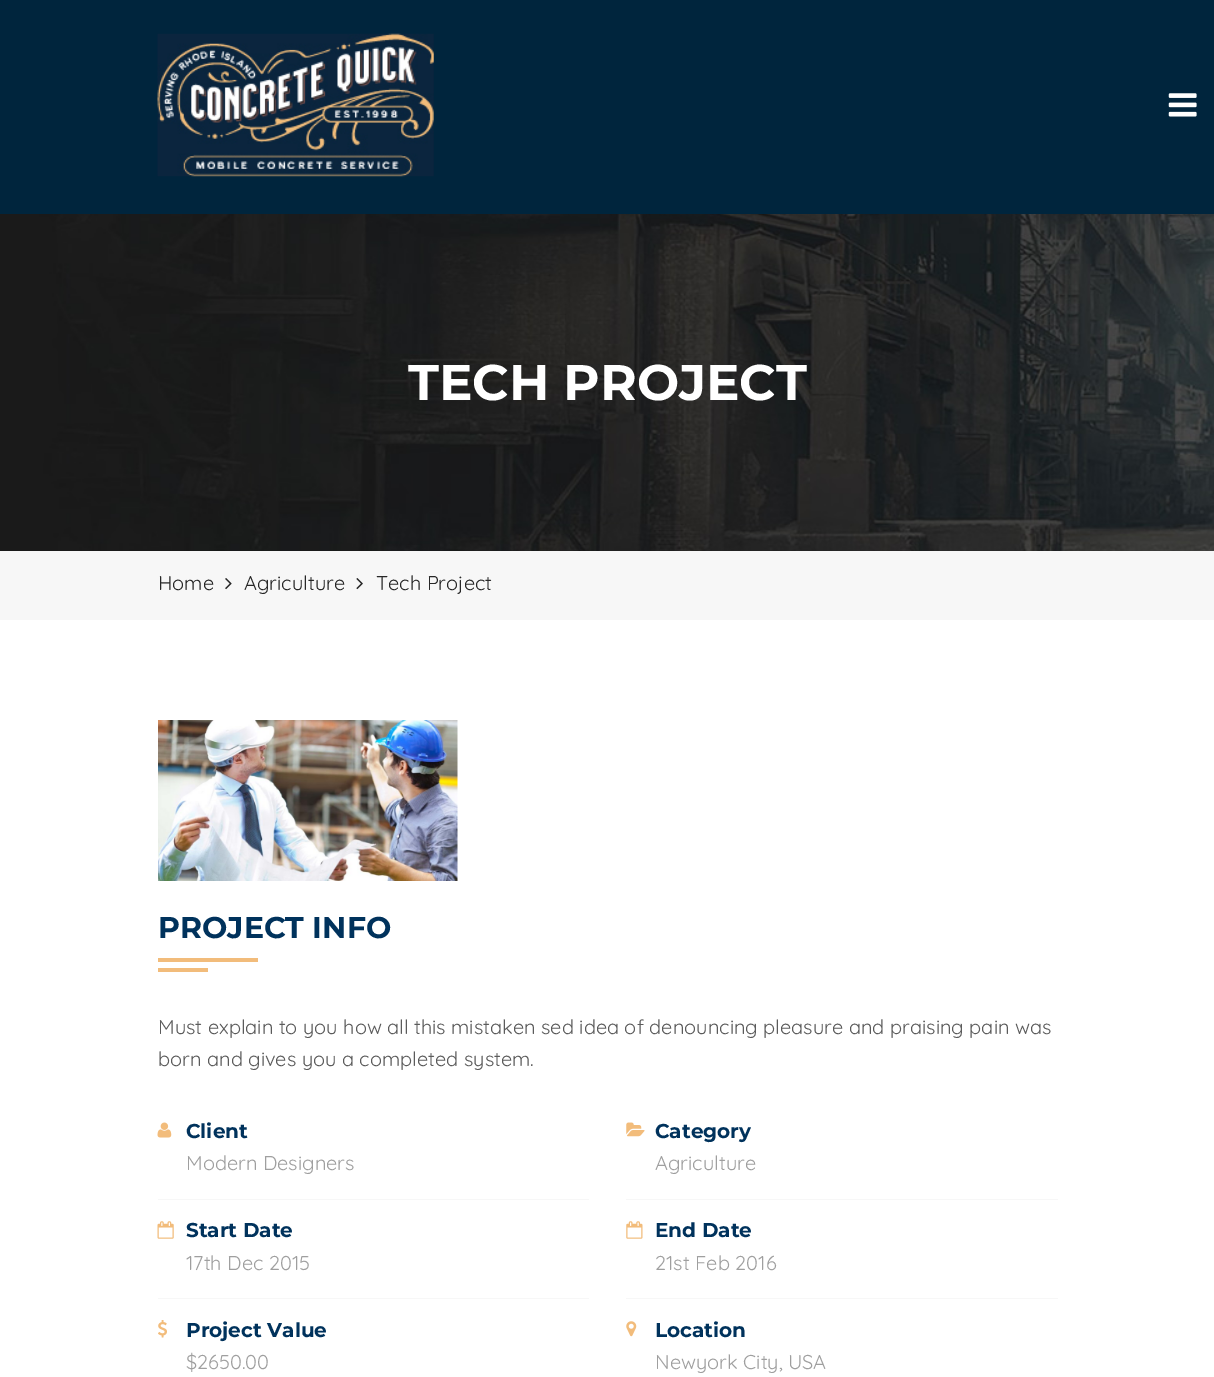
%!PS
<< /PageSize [1214 1377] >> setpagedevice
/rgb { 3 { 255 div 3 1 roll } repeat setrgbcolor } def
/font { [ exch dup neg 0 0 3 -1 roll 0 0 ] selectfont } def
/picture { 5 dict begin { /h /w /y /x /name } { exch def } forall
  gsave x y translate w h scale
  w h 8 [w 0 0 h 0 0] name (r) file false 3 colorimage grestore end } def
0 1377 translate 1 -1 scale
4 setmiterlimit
255 255 255 rgb
0 0 1214 1377 rectfill
0 37 61 rgb
0 0 1214 214 rectfill
(img/1.rgb) 157 33 277 144 picture
(img/2.rgb) 1168 93 29 24 picture
(img/3.rgb) 0 214 1214 337 picture
247 247 247 rgb
0 551 1214 69 rectfill
(img/4.rgb) 225 578 7 12 picture
(img/5.rgb) 356 578 7 12 picture
(img/6.rgb) 158 720 300 161 picture
[
  [158 958 100 4 242 188 123]
  [158 968 50 4 242 188 123]
  [158 1199 431 1 247 247 247]
] { aload pop rgb rectfill } forall
(img/7.rgb) 157 1122 15 16 picture
158 1298 431 1 rectfill
(img/8.rgb) 157 1221 17 18 picture
(img/9.rgb) 158 1320 9 18 picture
626 1199 432 1 rectfill
(img/10.rgb) 626 1122 19 15 picture
626 1298 432 1 rectfill
(img/11.rgb) 626 1221 17 18 picture
(img/12.rgb) 626 1321 11 16 picture
/Montserrat-Bold 50 font
255 255 255 rgb
408 400 moveto (TECH PROJECT) show
/Quicksand-Regular 20 font
39 39 39 rgb
[
  [(Home) 158 590]
  [(Agriculture) 244 590]
  [(Tech Project) 376 590]
] { aload pop moveto show } forall
/Montserrat-Bold 30 font
0 50 92 rgb
158 938 moveto (PROJECT INFO) show
/Quicksand-Regular 20 font
91 91 91 rgb
158 1034 moveto (Must explain to you how all this mistaken sed idea of denouncing pleasure and praising pain was) show
158 1066 moveto (born and gives you a completed system.) show
/Montserrat-Bold 20 font
0 50 92 rgb
186 1138 moveto (Client) show
/Quicksand-Regular 20 font
159 159 159 rgb
186 1170 moveto (Modern Designers) show
/Montserrat-Bold 20 font
0 50 92 rgb
186 1237 moveto (Start Date) show
/Quicksand-Regular 20 font
159 159 159 rgb
186 1270 moveto (17th Dec 2015) show
/Montserrat-Bold 20 font
0 50 92 rgb
186 1337 moveto (Project Value) show
/Quicksand-Regular 20 font
159 159 159 rgb
186 1369 moveto ($2650.00) show
/Montserrat-Bold 20 font
0 50 92 rgb
655 1138 moveto (Category) show
/Quicksand-Regular 20 font
159 159 159 rgb
655 1170 moveto (Agriculture) show
/Montserrat-Bold 20 font
0 50 92 rgb
655 1237 moveto (End Date) show
/Quicksand-Regular 20 font
159 159 159 rgb
655 1270 moveto (21st Feb 2016) show
/Montserrat-Bold 20 font
0 50 92 rgb
655 1337 moveto (Location) show
/Quicksand-Regular 20 font
159 159 159 rgb
655 1369 moveto (Newyork City, USA) show
showpage
